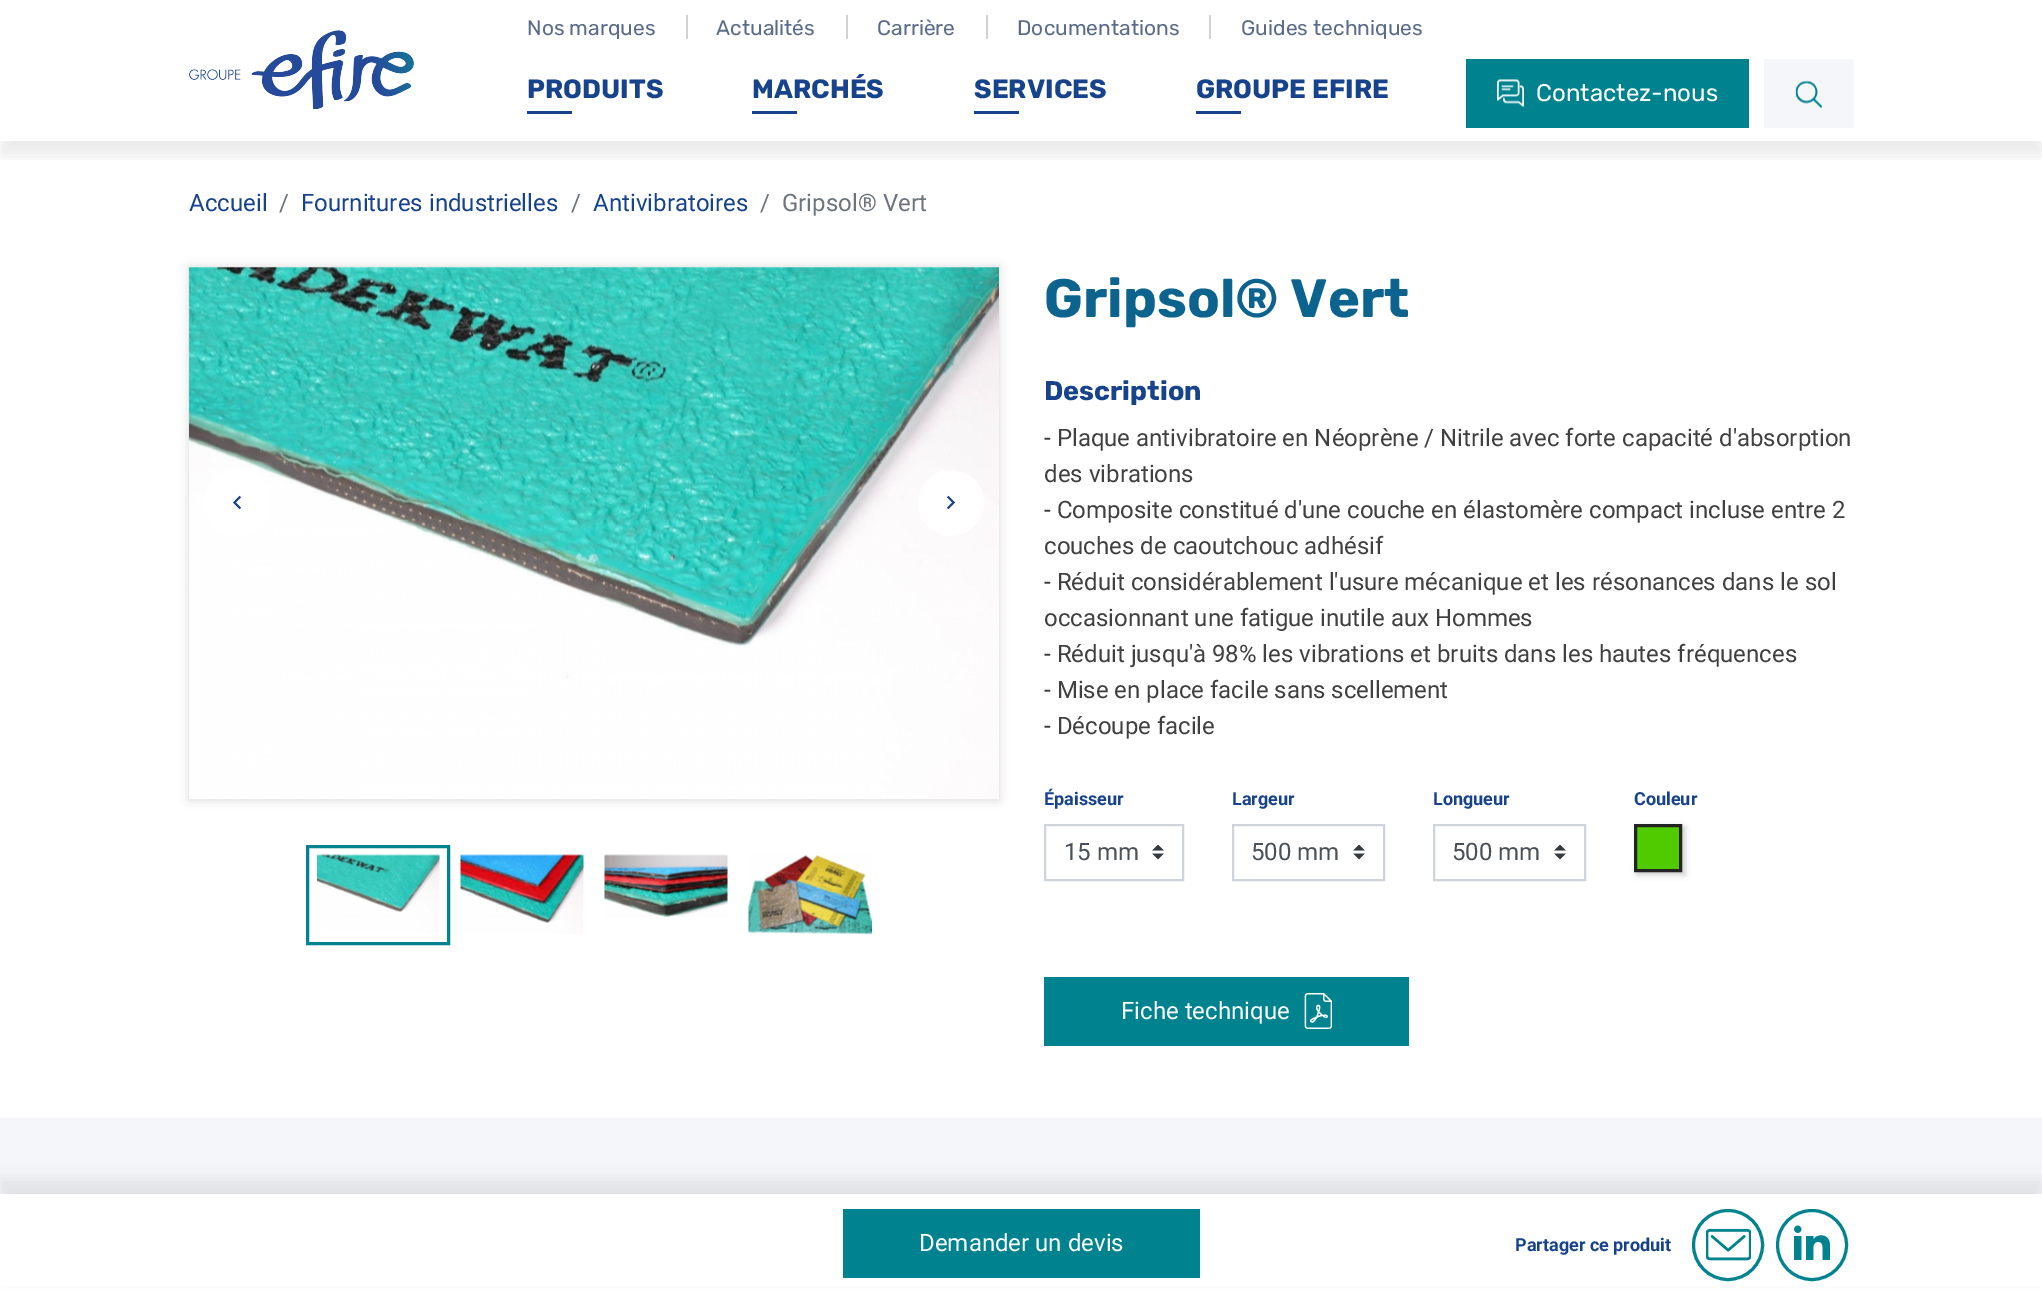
%!PS
<< /PageSize [2042 1292] /PageUsesTransparency true >> setpagedevice
/rgb { 3 { 255 div 3 1 roll } repeat setrgbcolor } def
/font { [ exch dup neg 0 0 3 -1 roll 0 0 ] selectfont } def
/alpha { dup .setfillconstantalpha .setstrokeconstantalpha } def
/circle { newpath 0 360 arc closepath } def
/roundrect { 5 dict begin { /r /h /w /y /x } { exch def } forall
  x r add y moveto x w add y 2 copy h add r arct x w add y h add x 1 index r arct
  x y h add x y r arct x y 2 copy exch w add exch r arct closepath end } def
/shadow { 12 dict begin { /a /b /q /h /w /y /x } { exch def } forall gsave /was 0 def
  9 -2 -9 { dup b mul 4 div /e exch def 1 sub .425 mul 2.718 exch exp 1 add a .99 .min exch div /now exch def
    1 1 now sub 1 was sub div sub alpha /was now def
    w h .min e 2 mul add 0 gt { x e sub y e sub w e 2 mul add h e 2 mul add
      q e add b .6 mul add w h .min 2 div e add .min 0 .max roundrect fill } if } for grestore end } def
/picture { 5 dict begin { /h /w /y /x /name } { exch def } forall
  gsave x y translate w h scale
  w h 8 [w 0 0 h 0 0] name (r) file false 3 colorimage grestore end } def
0 .pushpdf14devicefilter
0 1292 translate 1 -1 scale
4 setmiterlimit
255 255 255 rgb
0 0 2042 1292 rectfill
gsave
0 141 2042 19 rectclip
0 0 0 rgb
0 15 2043 141 0 7.5 0.07 shadow
grestore
(img/1.rgb) 189 30 225 80 picture
[
  [686 15 2 24 210 210 210]
  [846 15 2 24 210 210 210]
  [986 15 2 24 210 210 210]
  [1209 15 2 24 210 210 210]
  [527 111 45 3 23 66 140]
  [752 111 45 3 23 66 140]
  [974 111 45 3 23 66 140]
  [1196 111 45 3 23 66 140]
  [1466 59 283 69 0 131 142]
] { aload pop rgb rectfill } forall
(img/2.rgb) 1497 79 27 28 picture
245 246 250 rgb
1764 59 90 69 rectfill
(img/3.rgb) 1795 80 28 28 picture
0 0 0 rgb
189 267 810 533 0 5 0.15 shadow
(img/4.rgb) 189 267 810 532 picture
255 255 255 rgb
237 503 33 circle fill
(img/5.rgb) 233 495 8 15 picture
951 503 33 circle fill
(img/6.rgb) 947 495 8 15 picture
0 131 142 rgb
3 setlinewidth
307.5 846.5 141 97 rectstroke
(img/7.rgb) 317 854 123 79 picture
(img/8.rgb) 460 854 124 80 picture
(img/9.rgb) 604 854 124 63 picture
(img/10.rgb) 748 854 124 81 picture
(img/11.rgb) 1152 845 12 15 picture
206 212 218 rgb
2 setlinewidth
1045 825 138 55 rectstroke
(img/11.rgb) 1353 845 12 15 picture
1233 825 151 55 rectstroke
(img/11.rgb) 1554 845 12 15 picture
1434 825 151 55 rectstroke
0 0 0 rgb
1637 827 48 48 0 3 0.2 shadow
80 203 0 rgb
1635.5 825.5 moveto 1680.5 825.5 lineto 1680.5 870.5 lineto 1635.5 870.5 lineto closepath gsave fill grestore
35 35 35 rgb
3 setlinewidth
stroke
0 131 142 rgb
1044 977 365 69 rectfill
(img/12.rgb) 1304 993 28 36 picture
245 246 250 rgb
0 1118 2042 76 rectfill
0 0 0 rgb
0 1179 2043 99 0 7.5 0.07 shadow
255 255 255 rgb
0 1194 2042 92 rectfill
0 131 142 rgb
843 1209 357 69 rectfill
(img/13.rgb) 1706 1228 45 33 picture
1728 1245 34.5 circle stroke
(img/14.rgb) 1794 1225 36 35 picture
1812 1245 34.5 circle stroke
/Rubik-Regular 21 font
91 108 139 rgb
[
  [(Nos marques) 527 35]
  [(Actualités) 716 35]
  [(Carrière) 877 35]
  [(Documentations) 1017 35]
  [(Guides techniques) 1241 35]
] { aload pop moveto show } forall
/Rubik-Bold 26.5 font
23 66 140 rgb
[
  [(PRODUITS) 527 98]
  [(MARCHÉS) 752 98]
  [(SERVICES) 974 98]
  [(GROUPE EFIRE) 1196 98]
] { aload pop moveto show } forall
/Rubik-Regular 24 font
255 255 255 rgb
1536 101 moveto (Contactez-nous) show
/Roboto-Regular 24 font
23 66 140 rgb
189 211 moveto (Accueil) show
108 117 125 rgb
279 211 moveto (/) show
23 66 140 rgb
301 211 moveto (Fournitures industrielles) show
108 117 125 rgb
571 211 moveto (/) show
23 66 140 rgb
593 211 moveto (Antivibratoires) show
108 117 125 rgb
760 211 moveto (/) show
782 211 moveto (Gripsol® Vert) show
/Rubik-Bold 54 font
12 99 141 rgb
1044 317 moveto (Gripsol® Vert) show
/Rubik-Bold 27 font
23 66 140 rgb
1044 400 moveto (Description) show
/Roboto-Regular 24 font
64 64 64 rgb
[
  [(- Plaque antivibratoire en Néoprène / Nitrile avec forte capacité d'absorption) 1044 446]
  [(des vibrations) 1044 482]
  [(- Composite constitué d'une couche en élastomère compact incluse entre 2) 1044 518]
  [(couches de caoutchouc adhésif) 1044 554]
  [(- Réduit considérablement l'usure mécanique et les résonances dans le sol) 1044 590]
  [(occasionnant une fatigue inutile aux Hommes) 1044 626]
  [(- Réduit jusqu'à 98% les vibrations et bruits dans les hautes fréquences) 1044 662]
  [(- Mise en place facile sans scellement) 1044 698]
  [(- Découpe facile) 1044 734]
] { aload pop moveto show } forall
/Roboto-Bold 18 font
23 66 140 rgb
1044 805 moveto (Épaisseur) show
/Roboto-Regular 24 font
73 80 87 rgb
1064 860 moveto (15 mm) show
/Roboto-Bold 18 font
23 66 140 rgb
1232 805 moveto (Largeur) show
/Roboto-Regular 24 font
73 80 87 rgb
1251 860 moveto (500 mm) show
/Roboto-Bold 18 font
23 66 140 rgb
1433 805 moveto (Longueur) show
/Roboto-Regular 24 font
73 80 87 rgb
1452 860 moveto (500 mm) show
/Roboto-Bold 18 font
23 66 140 rgb
1634 805 moveto (Couleur) show
/Roboto-Regular 24 font
255 255 255 rgb
1121 1019 moveto (Fiche technique) show
919 1251 moveto (Demander un devis) show
/Roboto-Bold 18 font
23 66 140 rgb
1515 1251 moveto (Partager ce produit) show
.poppdf14devicefilter showpage
